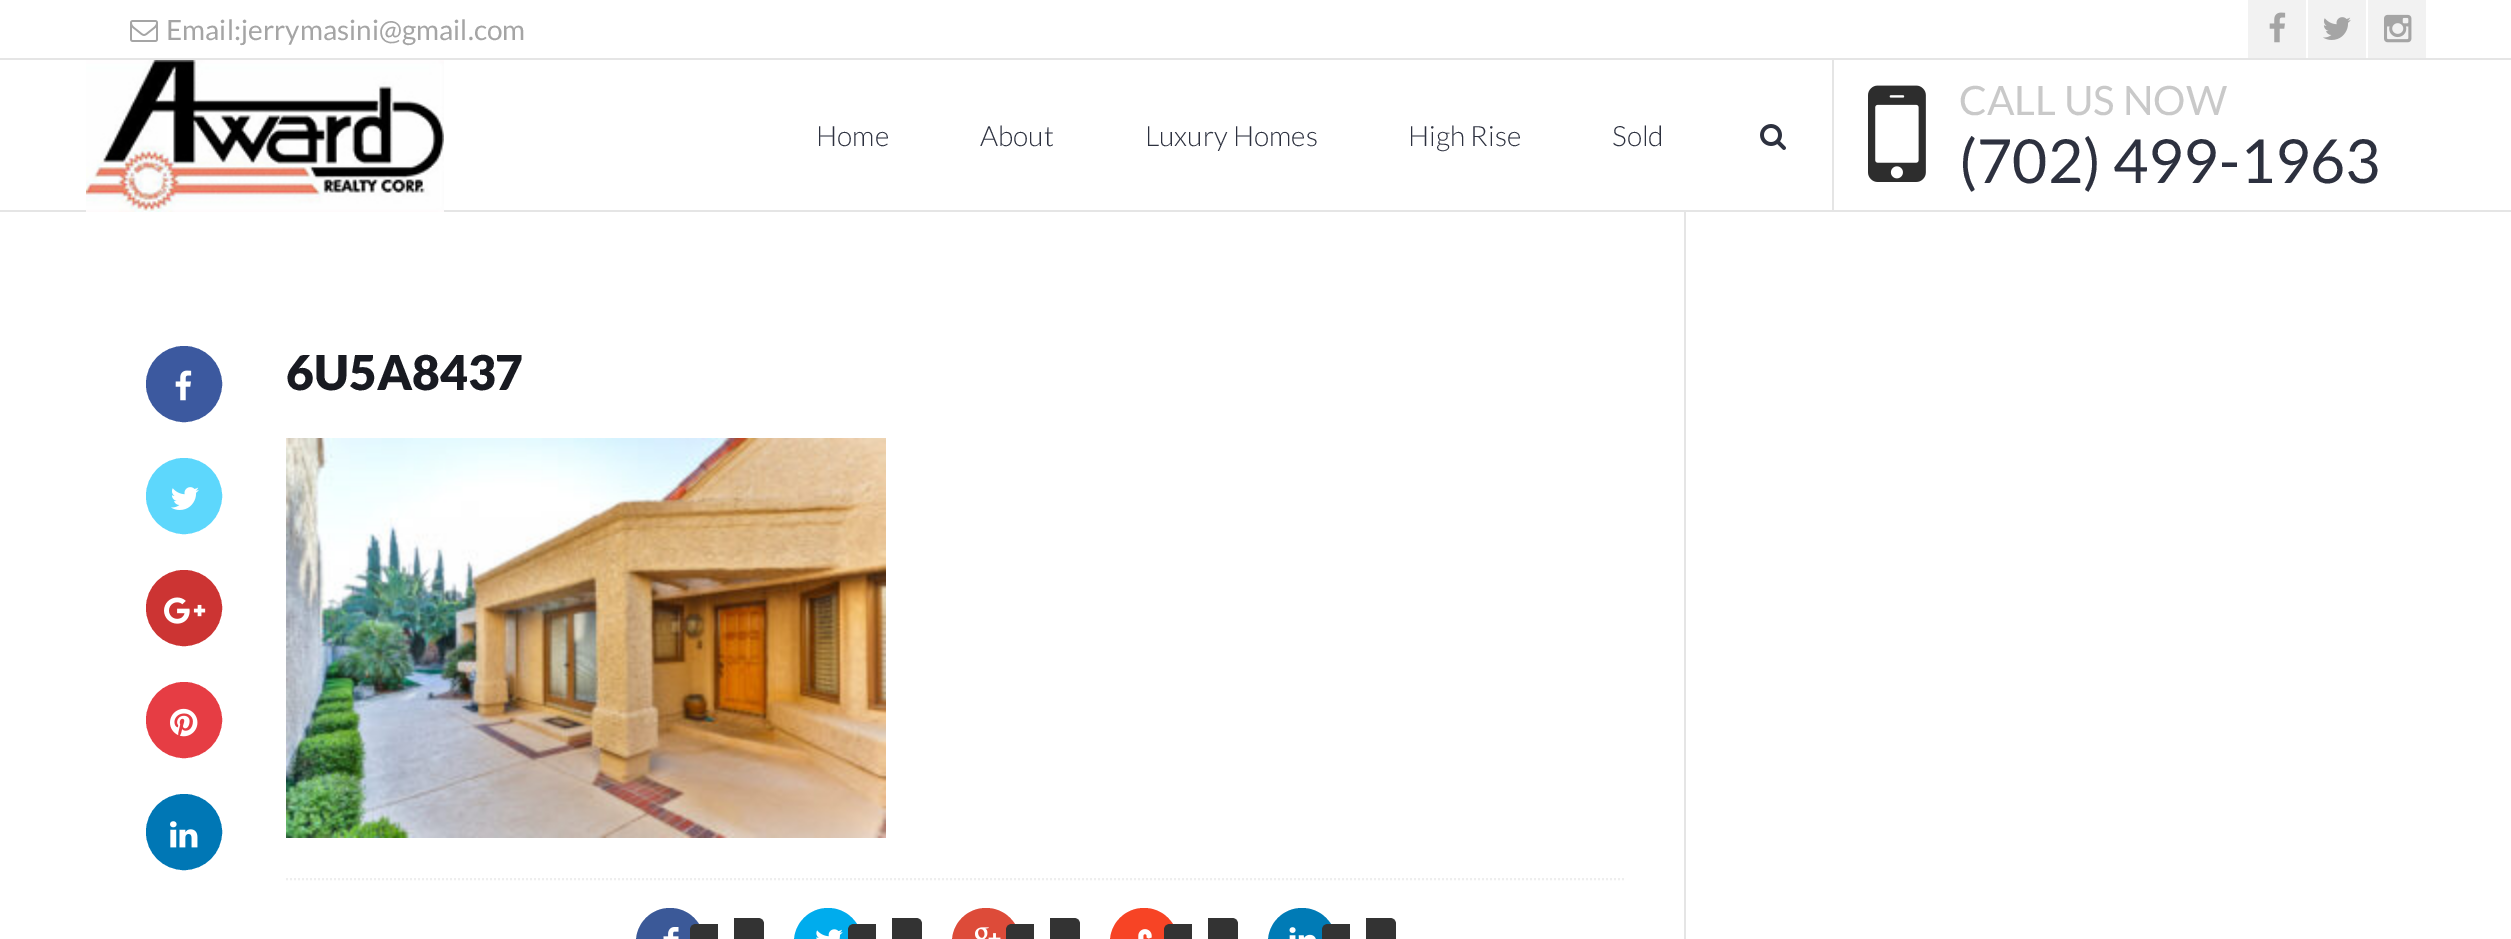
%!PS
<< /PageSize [2511 939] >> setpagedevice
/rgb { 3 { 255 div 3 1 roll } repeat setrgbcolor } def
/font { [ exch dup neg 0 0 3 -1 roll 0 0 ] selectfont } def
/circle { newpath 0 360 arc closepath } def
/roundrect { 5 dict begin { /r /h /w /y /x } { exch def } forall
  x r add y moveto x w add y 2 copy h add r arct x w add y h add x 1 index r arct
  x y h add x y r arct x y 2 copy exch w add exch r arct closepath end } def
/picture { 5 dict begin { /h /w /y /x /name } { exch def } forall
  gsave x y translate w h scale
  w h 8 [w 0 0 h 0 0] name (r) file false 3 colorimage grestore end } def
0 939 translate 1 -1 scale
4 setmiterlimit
255 255 255 rgb
0 0 2511 939 rectfill
229 229 229 rgb
0 58 2511 2 rectfill
(img/1.rgb) 130 20 28 22 picture
242 242 242 rgb
2248 0 58 58 rectfill
(img/2.rgb) 2269 12 17 31 picture
2308 0 58 58 rectfill
(img/3.rgb) 2323 17 28 23 picture
2368 0 58 58 rectfill
(img/4.rgb) 2384 14 28 29 picture
229 229 229 rgb
0 210 2511 2 rectfill
(img/5.rgb) 86 60 358 152 picture
(img/6.rgb) 1760 124 26 26 picture
1832 60 2 152 rectfill
(img/7.rgb) 1868 85 58 97 picture
60 89 159 rgb
184 384 36 circle gsave fill grestore
4 setlinewidth
stroke
(img/8.rgb) 175 370 17 31 picture
93 215 252 rgb
184 496 36 circle gsave fill grestore
stroke
(img/9.rgb) 171 487 28 23 picture
204 52 51 rgb
184 608 36 circle gsave fill grestore
stroke
(img/10.rgb) 164 597 42 27 picture
230 61 68 rgb
184 720 36 circle gsave fill grestore
stroke
(img/11.rgb) 170 708 28 29 picture
0 119 181 rgb
184 832 36 circle gsave fill grestore
stroke
(img/12.rgb) 170 821 28 27 picture
(img/13.rgb) 286 438 600 400 picture
238 238 238 rgb
2 setlinewidth
[2 2] 0 setdash
286 879 moveto 1626 879 lineto stroke
59 89 152 rgb
636 908 68 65 34 roundrect fill
(img/14.rgb) 663 927 16 12 picture
51 51 51 rgb
734 918 moveto 758 918 lineto 761.5 918 764 920.5 764 924 curveto 764 939 lineto 764 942.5 761.5 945 758 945 curveto 734 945 lineto closepath fill
696 924 moveto 718 924 lineto 718 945 lineto 696 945 lineto 692.5 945 690 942.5 690 939 curveto 690 930 lineto 690 926.5 692.5 924 696 924 curveto closepath fill
0 172 237 rgb
794 908 68 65 34 roundrect fill
(img/15.rgb) 816 929 27 10 picture
51 51 51 rgb
892 918 moveto 916 918 lineto 919.5 918 922 920.5 922 924 curveto 922 939 lineto 922 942.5 919.5 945 916 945 curveto 892 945 lineto closepath fill
854 924 moveto 876 924 lineto 876 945 lineto 854 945 lineto 850.5 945 848 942.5 848 939 curveto 848 930 lineto 848 926.5 850.5 924 854 924 curveto closepath fill
221 75 57 rgb
952 908 68 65 34 roundrect fill
(img/16.rgb) 975 927 26 12 picture
51 51 51 rgb
1050 918 moveto 1074 918 lineto 1077.5 918 1080 920.5 1080 924 curveto 1080 939 lineto 1080 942.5 1077.5 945 1074 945 curveto 1050 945 lineto closepath fill
1012 924 moveto 1034 924 lineto 1034 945 lineto 1012 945 lineto 1008.5 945 1006 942.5 1006 939 curveto 1006 930 lineto 1006 926.5 1008.5 924 1012 924 curveto closepath fill
247 68 37 rgb
1110 908 68 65 34 roundrect fill
(img/17.rgb) 1138 929 14 10 picture
51 51 51 rgb
1208 918 moveto 1232 918 lineto 1235.5 918 1238 920.5 1238 924 curveto 1238 939 lineto 1238 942.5 1235.5 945 1232 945 curveto 1208 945 lineto closepath fill
1170 924 moveto 1192 924 lineto 1192 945 lineto 1170 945 lineto 1166.5 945 1164 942.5 1164 939 curveto 1164 930 lineto 1164 926.5 1166.5 924 1170 924 curveto closepath fill
0 123 182 rgb
1268 908 68 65 34 roundrect fill
(img/18.rgb) 1289 927 27 12 picture
51 51 51 rgb
1366 918 moveto 1390 918 lineto 1393.5 918 1396 920.5 1396 924 curveto 1396 939 lineto 1396 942.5 1393.5 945 1390 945 curveto 1366 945 lineto closepath fill
1328 924 moveto 1350 924 lineto 1350 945 lineto 1328 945 lineto 1324.5 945 1322 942.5 1322 939 curveto 1322 930 lineto 1322 926.5 1324.5 924 1328 924 curveto closepath fill
229 229 229 rgb
1684 212 2 727 rectfill
/Lato-Regular 28 font
165 165 165 rgb
166 40 moveto (Email:jerrymasini@gmail.com) show
/Lato-Light 28 font
45 49 63 rgb
[
  [(Home) 816 146]
  [(About) 980 146]
  [(Luxury Homes) 1145 146]
  [(High Rise) 1408 146]
  [(Sold) 1612 146]
] { aload pop moveto show } forall
/Lato-Regular 40.5 font
201 201 201 rgb
1959 115 moveto (CALL US NOW) show
/Lato-Regular 60.75 font
45 49 63 rgb
1959 183 moveto (\(702\) 499-1963) show
/Lato-Black 48 font
24 26 33 rgb
286 390 moveto (6U5A8437) show
showpage
